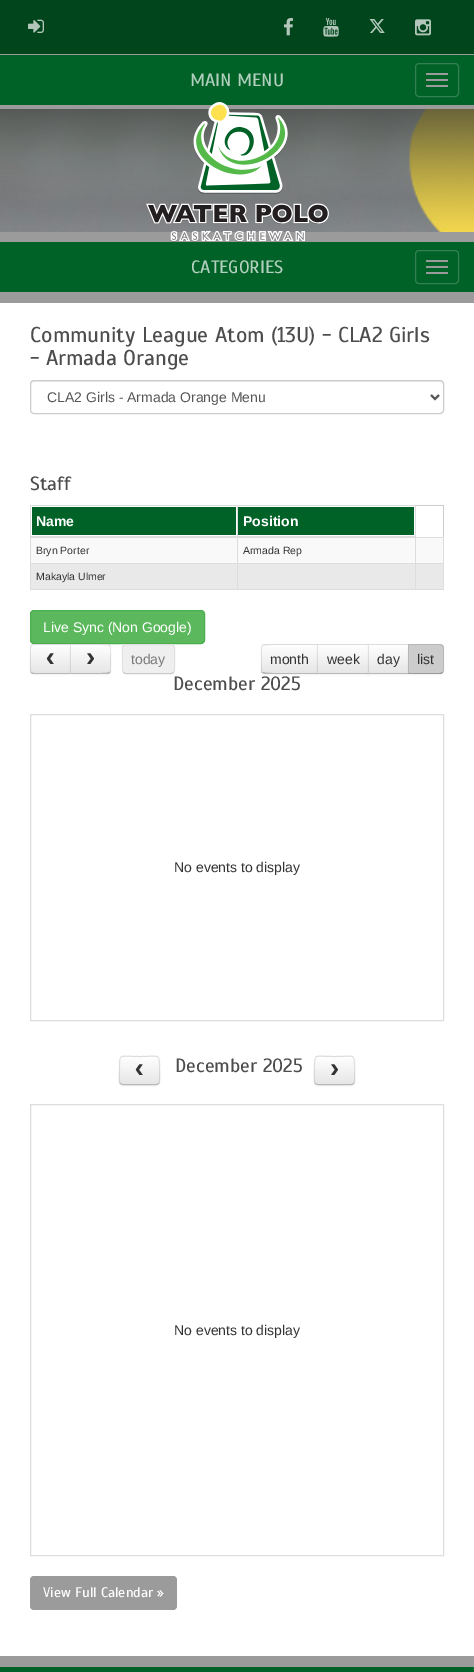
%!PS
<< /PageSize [474 1672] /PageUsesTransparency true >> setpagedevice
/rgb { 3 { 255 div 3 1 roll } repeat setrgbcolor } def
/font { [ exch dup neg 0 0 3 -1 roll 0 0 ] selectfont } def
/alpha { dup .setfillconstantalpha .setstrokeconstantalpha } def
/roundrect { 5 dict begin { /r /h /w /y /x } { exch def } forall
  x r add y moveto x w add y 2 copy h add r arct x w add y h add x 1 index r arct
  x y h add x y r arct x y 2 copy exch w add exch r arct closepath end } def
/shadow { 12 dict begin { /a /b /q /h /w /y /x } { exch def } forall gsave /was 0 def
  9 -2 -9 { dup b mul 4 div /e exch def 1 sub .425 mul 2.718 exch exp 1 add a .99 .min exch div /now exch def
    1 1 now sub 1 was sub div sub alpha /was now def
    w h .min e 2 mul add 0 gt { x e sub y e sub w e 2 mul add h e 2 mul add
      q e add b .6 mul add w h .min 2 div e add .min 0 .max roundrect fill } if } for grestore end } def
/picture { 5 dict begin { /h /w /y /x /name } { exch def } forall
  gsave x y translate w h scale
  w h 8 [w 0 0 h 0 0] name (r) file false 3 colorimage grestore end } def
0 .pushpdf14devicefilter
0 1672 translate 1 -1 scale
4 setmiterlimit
255 255 255 rgb
0 0 474 1672 rectfill
155 155 155 rgb
0 54 474 1 rectfill
0 69 27 rgb
0 0 474 54 rectfill
(img/1.rgb) 28 19 16 14 picture
(img/2.rgb) 284 18 9 18 picture
(img/3.rgb) 323 18 16 19 picture
(img/4.rgb) 369 19 16 14 picture
(img/5.rgb) 415 19 16 17 picture
0 98 39 rgb
0 55 474 50 rectfill
155 155 155 rgb
0 105 474 4 rectfill
51 129 82 rgb
415.5 63.5 43 33 3.5 roundrect stroke
155 155 155 rgb
426 73 22 2 1 roundrect fill
426 79 22 2 1 roundrect fill
426 85 22 2 1 roundrect fill
(img/7.rgb) 0 109 474 123 picture
(img/8.rgb) 0 109 474 123 picture
0 232 474 10 rectfill
(img/6.rgb) 146 102 183 140 picture
0 98 39 rgb
0 242 474 50 rectfill
51 129 82 rgb
415.5 250.5 43 33 3.5 roundrect stroke
155 155 155 rgb
426 260 22 2 1 roundrect fill
426 266 22 2 1 roundrect fill
426 272 22 2 1 roundrect fill
0 292 474 11 rectfill
236 236 236 rgb
34 382 moveto 440 382 lineto 442 382 443 383 443 385 curveto 443 383 442 381 440 381 curveto 34 381 lineto 32 381 31 383 31 385 curveto 31 383 32 382 34 382 curveto closepath fill
204 204 204 rgb
30.5 380.5 413 33 3.5 roundrect stroke
85 85 85 rgb
2 setlinewidth
431 395 moveto 435 399 lineto 439 395 lineto stroke
[
  [416 505 28 1 204 204 204]
  [443 505 1 33 204 204 204]
  [32 507 204 28 0 98 39]
  [237 505 179 1 221 221 221]
  [31 538 412 25 249 249 249]
  [415 563 29 1 221 221 221]
  [31 564 412 25 233 233 233]
  [443 563 1 27 221 221 221]
  [415 589 29 1 221 221 221]
  [415 563 1 27 221 221 221]
  [237 563 179 1 221 221 221]
  [237 589 179 1 221 221 221]
  [237 563 1 27 221 221 221]
  [30 563 208 1 221 221 221]
  [237 537 1 27 221 221 221]
  [237 505 1 33 221 221 221]
  [30 505 208 1 221 221 221]
  [30 589 208 1 221 221 221]
  [30 537 1 53 221 221 221]
  [30 505 1 33 221 221 221]
  [238 507 176 28 0 98 39]
  [415 537 29 1 221 221 221]
  [415 537 1 27 221 221 221]
  [415 505 1 33 221 221 221]
  [30 536 386 2 221 221 221]
  [443 537 1 27 221 221 221]
] { aload pop rgb rectfill } forall
92 184 92 rgb
30.5 610.5 174 33 3.5 roundrect gsave fill grestore
76 174 76 rgb
1 setlinewidth
stroke
0 0 0 rgb
30 645 41 30 4 1 0.05 shadow
245 245 245 rgb
34 644 moveto 71 644 lineto 71 674 lineto 34 674 lineto 32 674 30 672 30 670 curveto 30 648 lineto 30 646 32 644 34 644 curveto closepath fill
gsave
34 644 moveto 71 644 lineto 71 674 lineto 34 674 lineto 32 674 30 672 30 670 curveto 30 648 lineto 30 646 32 644 34 644 curveto closepath clip newpath
gsave 30 645 moveto 70 645 lineto 70 673 lineto 30 673 lineto closepath clip newpath
<< /ShadingType 2 /ColorSpace /DeviceRGB /Coords [51 645 51 673] /Extend [true true] /Function << /FunctionType 2 /Domain [0 1] /C0 [1 1 1] /C1 [0.902 0.902 0.902] /N 1 >> >> shfill grestore
grestore
0.1 alpha
0 0 0 rgb
34 644 moveto 33 644 32 644.5 31 645 curveto 32 646 lineto 32 645 33 645 34 645 curveto 70 645 lineto 71 644 lineto closepath fill
0.25 alpha
71 674 moveto 70 673 lineto 34 673 lineto 33 673 32 673 32 672 curveto 31 673 lineto 32 673.5 33 674 34 674 curveto closepath fill
0.1 alpha
30 648 moveto 30 670 lineto 30 671 30.5 672 31 673 curveto 32 672 lineto 31 672 31 671 31 670 curveto 31 648 lineto 31 647 31 646 32 646 curveto 31 645 lineto 30.5 646 30 647 30 648 curveto closepath fill
1 alpha
70 645 41 30 4 1 0.05 shadow
245 245 245 rgb
70 644 moveto 107 644 lineto 109 644 111 646 111 648 curveto 111 670 lineto 111 672 109 674 107 674 curveto 70 674 lineto closepath fill
gsave
70 644 moveto 107 644 lineto 109 644 111 646 111 648 curveto 111 670 lineto 111 672 109 674 107 674 curveto 70 674 lineto closepath clip newpath
gsave 70 645 moveto 111 645 lineto 111 673 lineto 70 673 lineto closepath clip newpath
<< /ShadingType 2 /ColorSpace /DeviceRGB /Coords [91 645 91 673] /Extend [true true] /Function << /FunctionType 2 /Domain [0 1] /C0 [1 1 1] /C1 [0.902 0.902 0.902] /N 1 >> >> shfill grestore
grestore
0.1 alpha
0 0 0 rgb
70 644 moveto 71 645 lineto 101 645 lineto 105.5 645 108 645 109 646 curveto 110 645 lineto 109 644.5 108 644 107 644 curveto closepath fill
111 670 moveto 111 648 lineto 111 647 110.5 646 110 645 curveto 109 646 lineto 110 646.5 110 647.5 110.5 648 curveto 110 659 lineto 110.5 670 lineto 110 670.5 110 671.5 109 672 curveto 110 673 lineto 110.5 672 111 671 111 670 curveto closepath fill
0.25 alpha
107 674 moveto 108 674 109 673.5 110 673 curveto 109 672 lineto 108 673 105.5 673 101 673 curveto 71 673 lineto 70 674 lineto closepath fill
0.1 alpha
70 644 moveto 70 674 lineto 71 673 lineto 71 645 lineto closepath fill
1 alpha
239 239 239 rgb
122 644 53 30 4 roundrect fill
0.25 alpha
89 89 89 rgb
173.5 672.5 moveto 173 673 172 673.5 171 673.5 curveto 126 673.5 lineto 125 673.5 124 673 123.5 672.5 curveto stroke
0.1 alpha
123.5 672.5 moveto 121.5 670.5 122.5 662 122.5 659 curveto 122.5 644.5 119.5 644.5 133.5 644.5 curveto 163.5 644.5 lineto 177.5 644.5 174.5 644.5 174.5 659 curveto 174.5 662 175.5 670.5 173.5 672.5 curveto stroke
1 alpha
0 0 0 rgb
261 645 57 30 4 1 0.05 shadow
245 245 245 rgb
265 644 moveto 318 644 lineto 318 674 lineto 265 674 lineto 263 674 261 672 261 670 curveto 261 648 lineto 261 646 263 644 265 644 curveto closepath fill
gsave
265 644 moveto 318 644 lineto 318 674 lineto 265 674 lineto 263 674 261 672 261 670 curveto 261 648 lineto 261 646 263 644 265 644 curveto closepath clip newpath
gsave 261 645 moveto 317 645 lineto 317 673 lineto 261 673 lineto closepath clip newpath
<< /ShadingType 2 /ColorSpace /DeviceRGB /Coords [290 645 290 673] /Extend [true true] /Function << /FunctionType 2 /Domain [0 1] /C0 [1 1 1] /C1 [0.902 0.902 0.902] /N 1 >> >> shfill grestore
grestore
0.1 alpha
0 0 0 rgb
265 644 moveto 262 645 lineto 263 646 lineto 265 644 311 645 317 645 curveto 318 644 lineto closepath fill
0.25 alpha
318 674 moveto 317 673 lineto 311 673 265 674 263 672 curveto 262 673 lineto 265 674 lineto closepath fill
0.1 alpha
261 648 moveto 261 670 lineto 261 671 261.5 672 262 673 curveto 263 672 lineto 262 672 262 671 262 670 curveto 262 648 lineto 262 647 262 646 263 646 curveto 262 645 lineto 261.5 646 261 647 261 648 curveto closepath fill
1 alpha
317 645 52 30 0 1 0.05 shadow
245 245 245 rgb
317 644 51 30 rectfill
gsave 317 645 moveto 368 645 lineto 368 673 lineto 317 673 lineto closepath clip newpath
<< /ShadingType 2 /ColorSpace /DeviceRGB /Coords [343 645 343 673] /Extend [true true] /Function << /FunctionType 2 /Domain [0 1] /C0 [1 1 1] /C1 [0.902 0.902 0.902] /N 1 >> >> shfill grestore
221 221 221 rgb
317 644 moveto 369 644 lineto 368 645 lineto 318 645 lineto closepath fill
0.25 alpha
0 0 0 rgb
369 674 moveto 317 674 lineto 318 673 lineto 368 673 lineto closepath fill
0.1 alpha
317 674 moveto 317 644 lineto 318 645 lineto 318 673 lineto closepath fill
1 alpha
368 645 41 30 0 1 0.05 shadow
245 245 245 rgb
368 644 40 30 rectfill
gsave 368 645 moveto 408 645 lineto 408 673 lineto 368 673 lineto closepath clip newpath
<< /ShadingType 2 /ColorSpace /DeviceRGB /Coords [389 645 389 673] /Extend [true true] /Function << /FunctionType 2 /Domain [0 1] /C0 [1 1 1] /C1 [0.902 0.902 0.902] /N 1 >> >> shfill grestore
221 221 221 rgb
368 644 moveto 409 644 lineto 408 645 lineto 369 645 lineto closepath fill
0.25 alpha
0 0 0 rgb
409 674 moveto 368 674 lineto 369 673 lineto 408 673 lineto closepath fill
0.1 alpha
368 674 moveto 368 644 lineto 369 645 lineto 369 673 lineto closepath fill
1 alpha
408 645 36 30 4 1 0.05 shadow
204 204 204 rgb
408 644 moveto 440 644 lineto 442 644 444 646 444 648 curveto 444 670 lineto 444 672 442 674 440 674 curveto 408 674 lineto closepath fill
0.1 alpha
0 0 0 rgb
408 644 moveto 409 645 lineto 440 645 lineto 441 645 441.5 645.5 442 646 curveto 443 645 lineto 442 644.5 441 644 440 644 curveto closepath fill
444 670 moveto 444 648 lineto 444 647 443.5 646 443 645 curveto 442 646 lineto 442.5 646.5 443 647 443 648 curveto 443 670 lineto 443 671 442.5 671.5 442 672 curveto 443 673 lineto 443.5 672 444 671 444 670 curveto closepath fill
0.25 alpha
440 674 moveto 441 674 442 673.5 443 673 curveto 442 672 lineto 441.5 672.5 441 673 440 673 curveto 409 673 lineto 408 674 lineto closepath fill
0.1 alpha
408 644 moveto 408 674 lineto 409 673 lineto 409 645 lineto closepath fill
1 alpha
221 221 221 rgb
30.5 714.5 413 306 rectstroke
0 0 0 rgb
119 1057 41 29 4 1 0.05 shadow
245 245 245 rgb
119 1056 41 29 4 roundrect fill
gsave
119 1056 41 29 4 roundrect clip newpath
gsave 119 1057 moveto 160 1057 lineto 160 1084 lineto 119 1084 lineto closepath clip newpath
<< /ShadingType 2 /ColorSpace /DeviceRGB /Coords [140 1057 140 1084] /Extend [true true] /Function << /FunctionType 2 /Domain [0 1] /C0 [1 1 1] /C1 [0.902 0.902 0.902] /N 1 >> >> shfill grestore
grestore
184 184 184 rgb
158.5 1083.5 moveto 158 1084 157 1084.5 156 1084.5 curveto 123 1084.5 lineto 122 1084.5 121 1084 120.5 1083.5 curveto stroke
0.1 alpha
0 0 0 rgb
120.5 1083.5 moveto 118.5 1081.5 119.5 1073 119.5 1070.5 curveto 119.5 1052 118.5 1056.5 139.5 1056.5 curveto 160.5 1056.5 159.5 1052 159.5 1070.5 curveto 159.5 1073 160.5 1081.5 158.5 1083.5 curveto stroke
1 alpha
314 1057 41 29 4 1 0.05 shadow
245 245 245 rgb
314 1056 41 29 4 roundrect fill
gsave
314 1056 41 29 4 roundrect clip newpath
gsave 314 1057 moveto 355 1057 lineto 355 1084 lineto 314 1084 lineto closepath clip newpath
<< /ShadingType 2 /ColorSpace /DeviceRGB /Coords [335 1057 335 1084] /Extend [true true] /Function << /FunctionType 2 /Domain [0 1] /C0 [1 1 1] /C1 [0.902 0.902 0.902] /N 1 >> >> shfill grestore
grestore
184 184 184 rgb
353.5 1083.5 moveto 353 1084 352 1084.5 351 1084.5 curveto 318 1084.5 lineto 317 1084.5 316 1084 315.5 1083.5 curveto stroke
0.1 alpha
0 0 0 rgb
315.5 1083.5 moveto 313.5 1081.5 314.5 1073 314.5 1070.5 curveto 314.5 1052 313.5 1056.5 334.5 1056.5 curveto 355.5 1056.5 354.5 1052 354.5 1070.5 curveto 354.5 1073 355.5 1081.5 353.5 1083.5 curveto stroke
1 alpha
221 221 221 rgb
30.5 1104.5 413 451 rectstroke
155 155 155 rgb
30 1576 147 34 4 roundrect fill
0 1656 474 11 rectfill
0 98 39 rgb
0 1667 474 5 rectfill
26 114 61 rgb
[1 1] 0 setdash
473.5 1667 moveto 473.5 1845 lineto stroke
/Scada-Regular 18 font
179 208 190 rgb
190 86 moveto (MAIN MENU) show
191 273 moveto (CATEGORIES) show
/Scada-Regular 21.6 font
77 77 77 rgb
30 342 moveto (Community League Atom \(13U\) - CLA2 Girls) show
30 365 moveto (- Armada Orange) show
/LiberationSans-Regular 14 font
85 85 85 rgb
47 402 moveto (CLA2 Girls - Armada Orange Menu) show
/Scada-Regular 19.25 font
77 77 77 rgb
30 490 moveto (Staff) show
/LiberationSans-Bold 14 font
255 255 255 rgb
36 526 moveto (Name) show
243 526 moveto (Position) show
/LiberationSans-Regular 10.5 font
51 51 51 rgb
[
  [(Bryn Porter) 36 554]
  [(Armada Rep) 243 554]
  [(Makayla Ulmer) 36 580]
] { aload pop moveto show } forall
/LiberationSans-Regular 14 font
255 255 255 rgb
43 632 moveto (Live Sync \(Non Google\)) show
/LiberationMono-Bold 28 font
51 51 51 rgb
42 666 moveto (‹) show
82 666 moveto (›) show
/LiberationSans-Regular 14 font
122 122 122 rgb
131 664 moveto (today) show
51 51 51 rgb
[
  [(month) 270 664]
  [(week) 327 664]
  [(day) 377 664]
  [(list) 417 664]
] { aload pop moveto show } forall
/Scada-Regular 19.25 font
77 77 77 rgb
173 690 moveto (December 2025) show
/LiberationSans-Regular 14 font
51 51 51 rgb
174 872 moveto (No events to display) show
/LiberationMono-Bold 28 font
131 1077 moveto (‹) show
/Scada-Regular 19.25 font
77 77 77 rgb
175 1072 moveto (December 2025) show
/LiberationMono-Bold 28 font
51 51 51 rgb
326 1077 moveto (›) show
/LiberationSans-Regular 14 font
174 1335 moveto (No events to display) show
/Scada-Regular 14 font
255 255 255 rgb
43 1597 moveto (View Full Calendar ») show
.poppdf14devicefilter showpage
